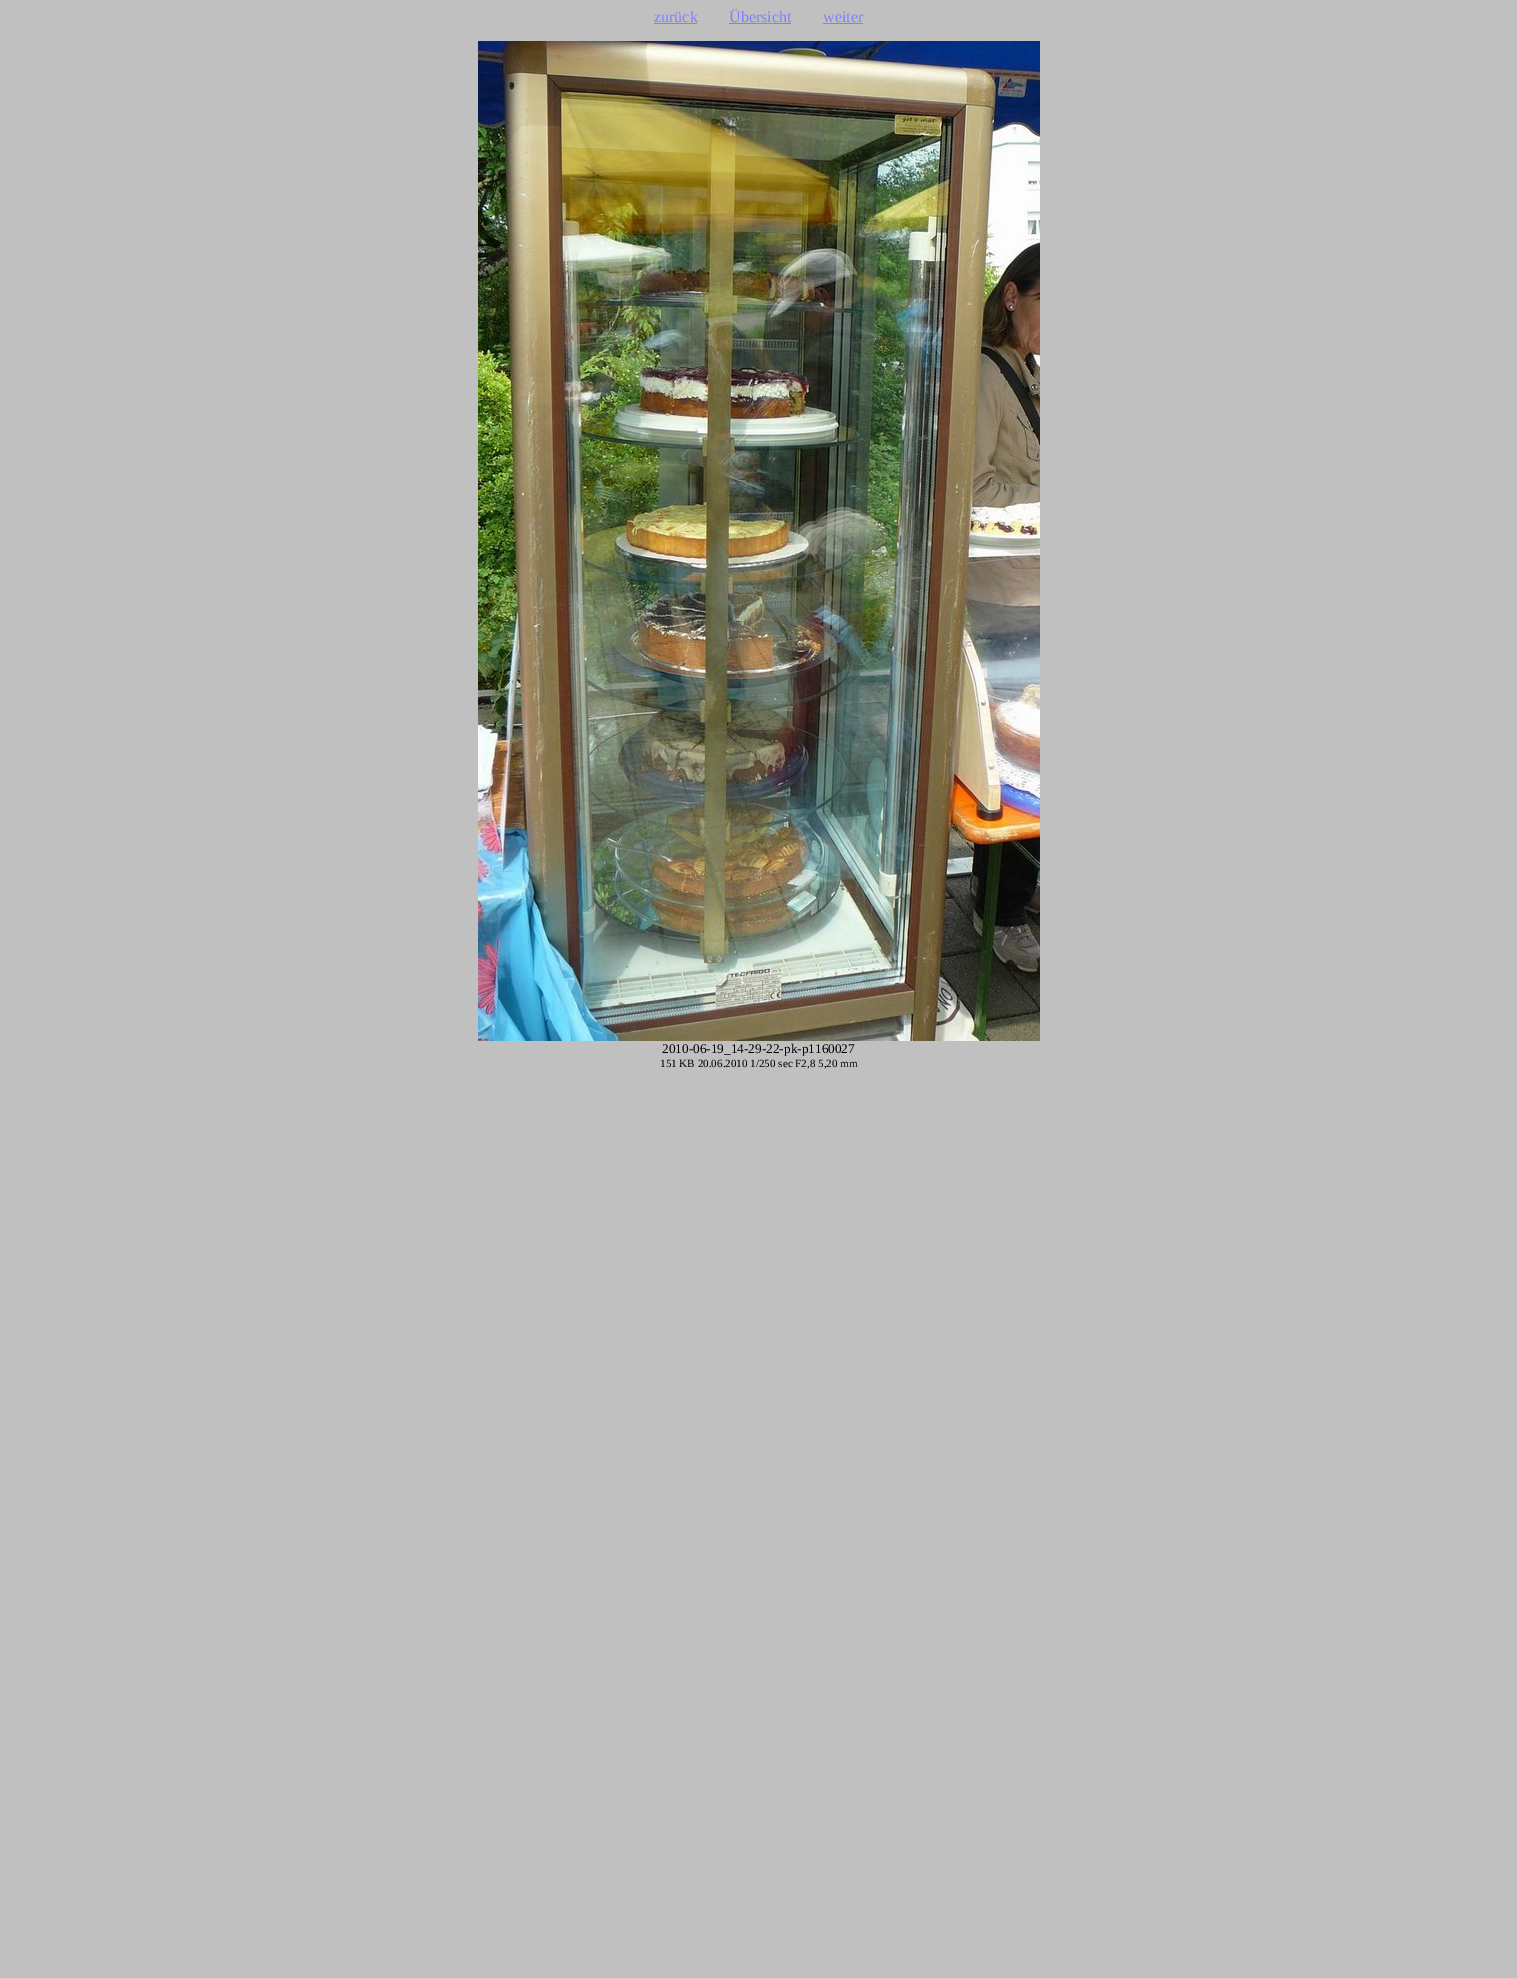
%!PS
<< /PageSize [1517 1978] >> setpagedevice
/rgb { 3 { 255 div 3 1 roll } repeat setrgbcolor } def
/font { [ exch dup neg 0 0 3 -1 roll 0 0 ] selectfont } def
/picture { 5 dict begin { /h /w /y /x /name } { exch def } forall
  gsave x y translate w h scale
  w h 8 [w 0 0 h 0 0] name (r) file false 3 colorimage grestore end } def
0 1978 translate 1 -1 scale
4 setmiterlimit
192 192 192 rgb
0 0 1517 1978 rectfill
[
  [654 23 43 1 128 128 255]
  [729 23 62 1 128 128 255]
  [823 23 40 1 128 128 255]
] { aload pop rgb rectfill } forall
(img/1.rgb) 478 41 562 1000 picture
/LiberationSerif-Regular 16 font
[
  [(zurück) 654 22]
  [(Übersicht) 729 22]
  [(weiter) 823 22]
] { aload pop moveto show } forall
/LiberationSerif-Regular 13.3 font
0 0 0 rgb
662 1053 moveto (2010-06-19_14-29-22-pk-p1160027) show
/LiberationSerif-Regular 11.1 font
660 1067 moveto (151 KB 20.06.2010 1/250 sec F2,8 5,20 mm) show
showpage
